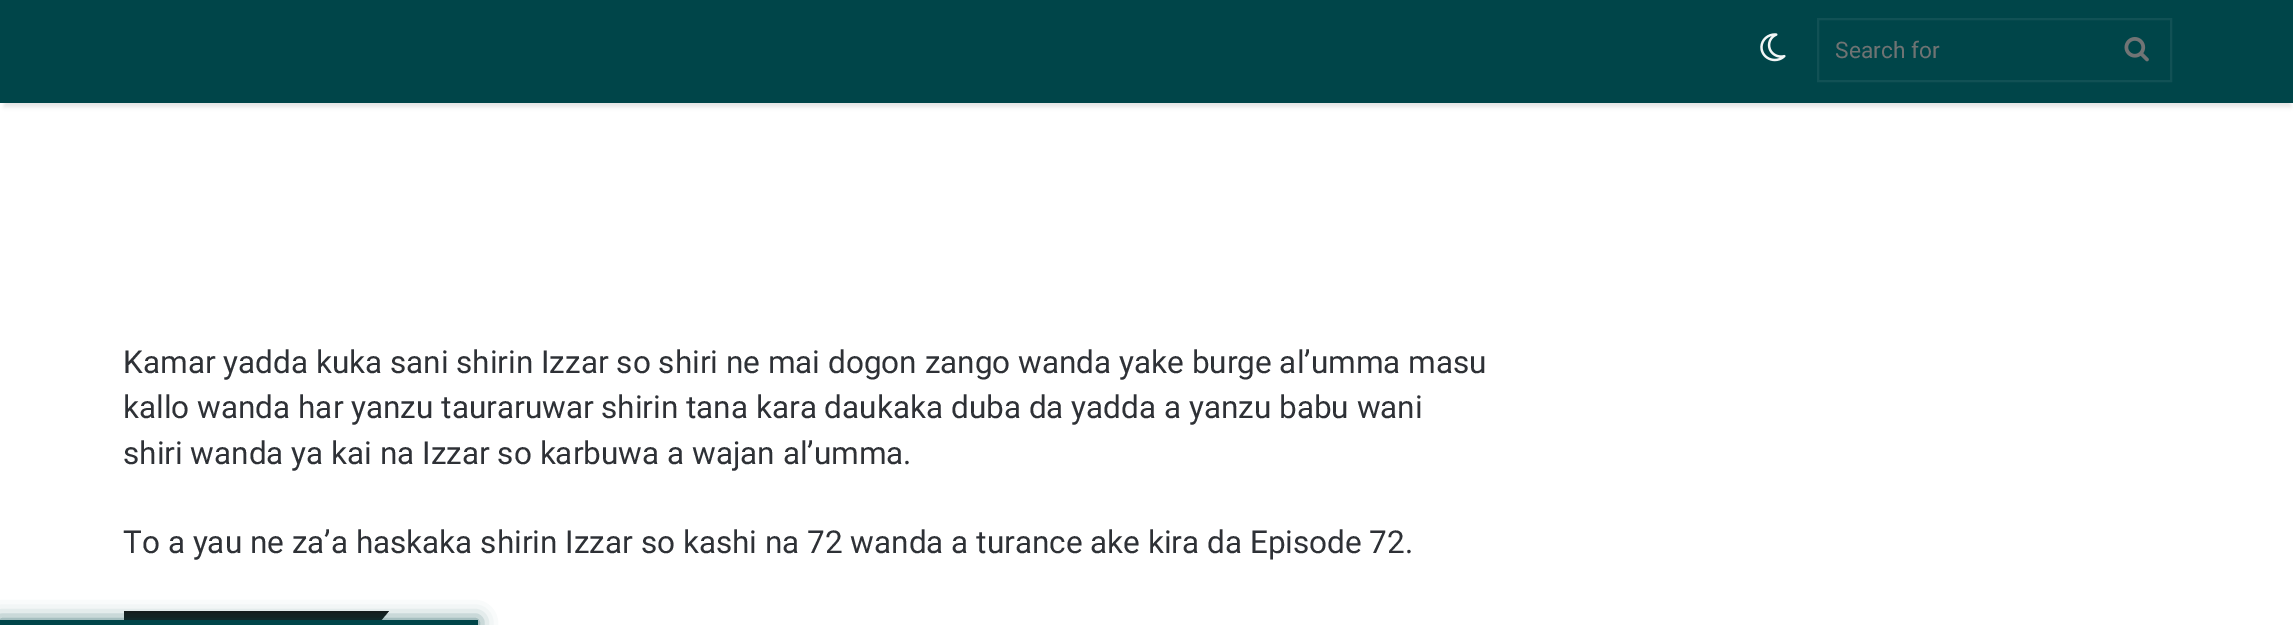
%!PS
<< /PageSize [2293 625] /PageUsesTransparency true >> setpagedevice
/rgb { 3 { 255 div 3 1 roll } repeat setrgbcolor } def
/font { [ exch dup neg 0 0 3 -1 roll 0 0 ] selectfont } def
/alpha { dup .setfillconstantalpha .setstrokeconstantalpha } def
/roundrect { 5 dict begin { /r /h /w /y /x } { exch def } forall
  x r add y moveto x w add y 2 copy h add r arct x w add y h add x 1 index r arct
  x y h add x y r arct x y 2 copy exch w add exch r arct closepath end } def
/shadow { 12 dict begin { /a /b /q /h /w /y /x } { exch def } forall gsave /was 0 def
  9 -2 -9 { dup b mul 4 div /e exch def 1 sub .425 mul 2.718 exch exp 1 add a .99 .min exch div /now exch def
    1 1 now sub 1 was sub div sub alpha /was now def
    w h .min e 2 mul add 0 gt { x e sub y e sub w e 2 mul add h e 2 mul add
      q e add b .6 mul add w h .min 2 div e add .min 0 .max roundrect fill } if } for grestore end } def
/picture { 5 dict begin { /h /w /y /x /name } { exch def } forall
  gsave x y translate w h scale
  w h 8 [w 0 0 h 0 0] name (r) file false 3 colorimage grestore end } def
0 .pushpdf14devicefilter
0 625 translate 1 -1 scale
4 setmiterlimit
255 255 255 rgb
0 0 2293 625 rectfill
0 0 0 rgb
4 9 2287 98 0 2 0.1 shadow
0 69 73 rgb
0 0 2293 103 rectfill
(img/1.rgb) 1760 33 26 29 picture
17 81 85 rgb
2 setlinewidth
1818 19 353 62 rectstroke
(img/2.rgb) 2124 37 25 25 picture
24 24 24 rgb
124 611 110 9 rectfill
234 611 moveto 389 611 lineto 350 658 lineto 195 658 lineto closepath fill
0 69 73 rgb
0 620 478 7 0 9 0.7 shadow
0 620 478 5 rectfill
/Roboto-Regular 22.75 font
111 115 115 rgb
1835 58 moveto (Search for) show
/Roboto-Regular 31.5 font
46 49 54 rgb
[
  [(Kamar yadda kuka sani shirin Izzar so shiri ne mai dogon zango wanda yake burge al’umma masu) 123 373]
  [(kallo wanda har yanzu tauraruwar shirin tana kara daukaka duba da yadda a yanzu babu wani) 123 418]
  [(shiri wanda ya kai na Izzar so karbuwa a wajan al’umma.) 123 464]
  [(To a yau ne za’a haskaka shirin Izzar so kashi na 72 wanda a turance ake kira da Episode 72.) 123 553]
] { aload pop moveto show } forall
.poppdf14devicefilter showpage
